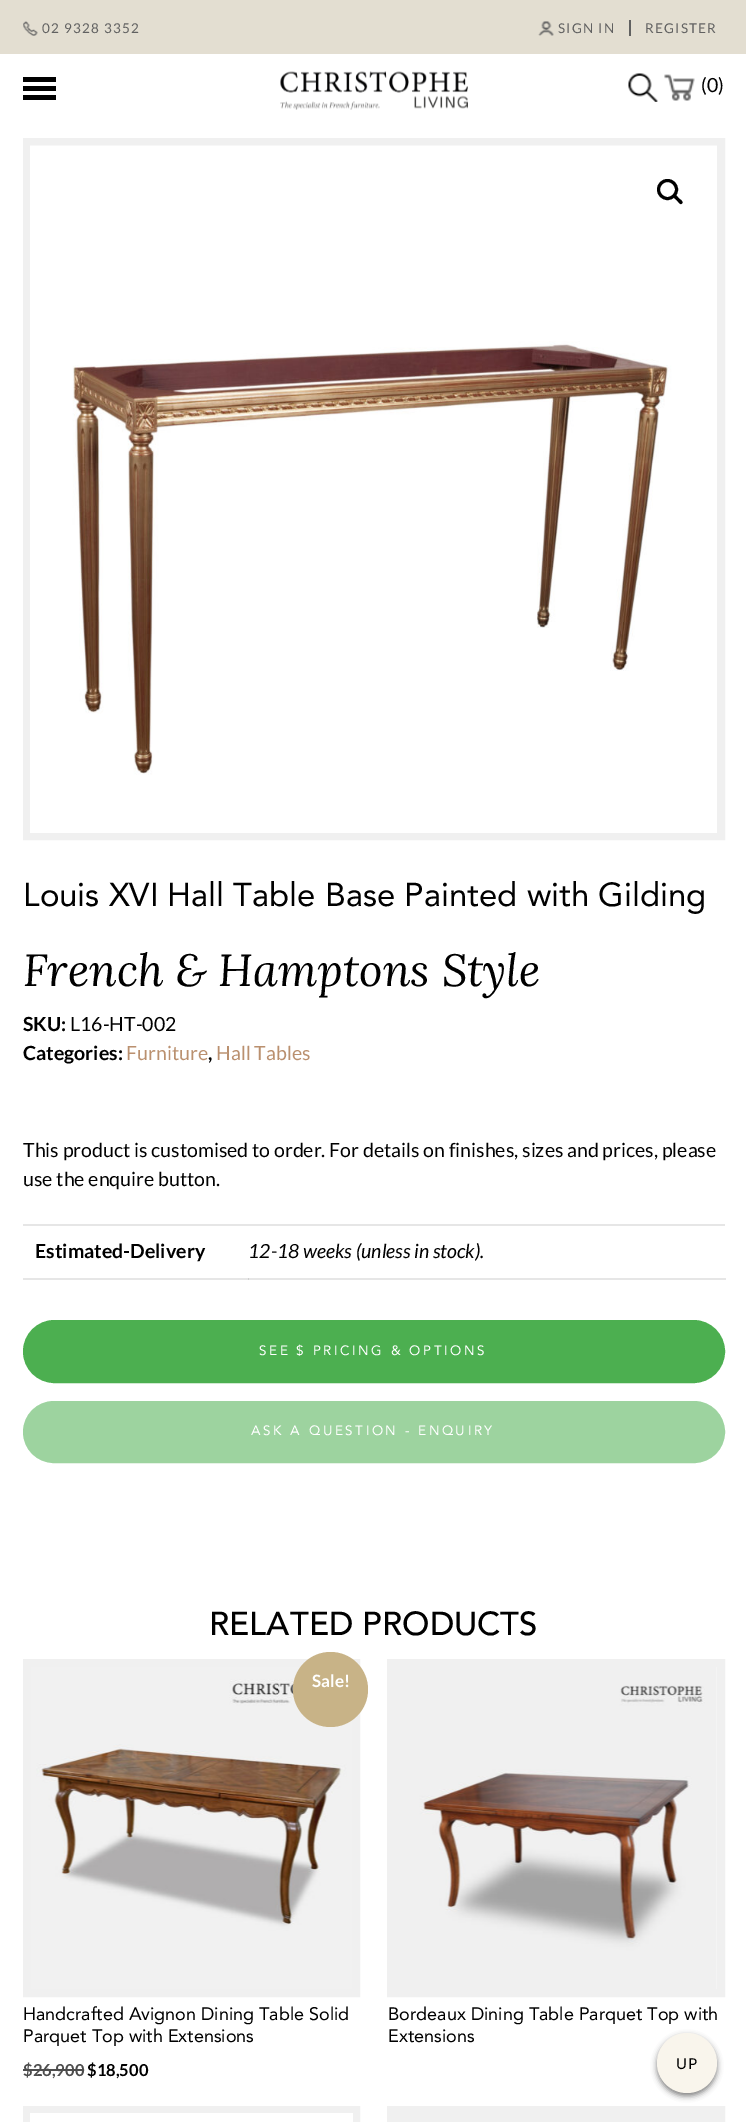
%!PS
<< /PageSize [746 2122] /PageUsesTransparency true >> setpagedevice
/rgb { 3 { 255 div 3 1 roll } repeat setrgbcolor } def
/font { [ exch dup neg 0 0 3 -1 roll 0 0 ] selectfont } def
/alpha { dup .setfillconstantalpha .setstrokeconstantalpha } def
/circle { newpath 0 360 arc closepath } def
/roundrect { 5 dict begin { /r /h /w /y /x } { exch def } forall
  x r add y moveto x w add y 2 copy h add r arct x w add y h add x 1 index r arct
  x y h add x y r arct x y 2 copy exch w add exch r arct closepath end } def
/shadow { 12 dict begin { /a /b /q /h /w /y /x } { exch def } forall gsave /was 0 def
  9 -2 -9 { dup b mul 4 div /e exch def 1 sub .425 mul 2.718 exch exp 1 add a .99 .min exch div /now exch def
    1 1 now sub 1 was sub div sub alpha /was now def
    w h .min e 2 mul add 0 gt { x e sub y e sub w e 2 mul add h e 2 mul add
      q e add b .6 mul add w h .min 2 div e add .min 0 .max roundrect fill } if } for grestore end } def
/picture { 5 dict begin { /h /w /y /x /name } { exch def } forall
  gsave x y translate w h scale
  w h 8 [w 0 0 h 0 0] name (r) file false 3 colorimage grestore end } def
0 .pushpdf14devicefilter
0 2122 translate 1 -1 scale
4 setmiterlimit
255 255 255 rgb
0 0 746 2122 rectfill
230 230 230 rgb
23 1278 703 2 rectfill
227 222 209 rgb
0 0 746 54 rectfill
(img/1.rgb) 23 21 15 15 picture
(img/2.rgb) 538 21 16 15 picture
[
  [629 20 2 16 97 97 97]
  [23 77 33 5 0 0 0]
  [23 86 33 5 0 0 0]
  [23 95 33 5 0 0 0]
] { aload pop rgb rectfill } forall
(img/3.rgb) 280 71 188 39 picture
(img/4.rgb) 628 73 30 29 picture
(img/5.rgb) 664 74 31 27 picture
240 240 240 rgb
8 setlinewidth
27 142 694 694 rectstroke
(img/6.rgb) 30 145 687 688 picture
0 0 0 rgb
3 setlinewidth
667.5 189.5 9 circle stroke
674 195 moveto 675.5 193.5 678 197.5 679 198.5 curveto 680 199 684 202 682 203.5 curveto 680.5 205.5 678 201.5 677 200.5 curveto 676 199.5 672 197 674 195 curveto closepath fill
230 230 230 rgb
23 1224 702 2 rectfill
207 207 207 rgb
248 1278 1 2 rectfill
76 175 80 rgb
24 1321 700 61 30.5 roundrect gsave fill grestore
2 setlinewidth
stroke
157 211 159 rgb
24 1402 700 60 30 roundrect gsave fill grestore
stroke
240 240 240 rgb
8 setlinewidth
27 1663 329 330 rectstroke
(img/7.rgb) 31 1667 321 322 picture
200 179 135 rgb
330.5 1689.5 37.5 circle fill
77 77 77 rgb
23 2069 61 2 rectfill
240 240 240 rgb
391 1663 330 330 rectstroke
(img/8.rgb) 395 1667 322 322 picture
27 2110 329 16 rectstroke
255 255 255 rgb
30 2113 323 9 rectfill
240 240 240 rgb
391 2110 330 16 rectstroke
395 2114 322 8 rectfill
0 0 0 rgb
657 2036 60 60 30 3 0.5 shadow
249 245 236 rgb
687 2063 30 circle fill
/Lato-Regular 13.5 font
97 97 97 rgb
42 33 moveto 1.25 0 (02 9328 3352) ashow
558 33 moveto 1.25 0 (SIGN IN) ashow
645 33 moveto 1.25 0 (REGISTER) ashow
/Lato-Regular 19.5 font
0 0 0 rgb
701 92 moveto (\(0\)) show
/Avenir-Regular 33 font
23 906 moveto (Louis XVI Hall Table Base Painted with Gilding) show
/Lora-Italic 45 font
23 986 moveto (French & Hamptons Style) show
/Lato-Bold 19.5 font
23 1031 moveto (SKU:) show
/Lato-Regular 19.5 font
70 1031 moveto (L16-HT-002) show
/Lato-Bold 19.5 font
23 1060 moveto (Categories:) show
/Lato-Regular 19.5 font
186 144 111 rgb
126 1060 moveto (Furniture) show
/Lato-Bold 19.5 font
0 0 0 rgb
208 1060 moveto (,) show
/Lato-Regular 19.5 font
186 144 111 rgb
216 1060 moveto (Hall Tables) show
0 0 0 rgb
23 1157 moveto (This product is customised to order. For details on finishes, sizes and prices, please) show
23 1186 moveto (use the enquire button.) show
/Lato-Bold 19.5 font
35 1258 moveto (Estimated-Delivery) show
/Lato-Italic 19.5 font
248 1258 moveto (12-18 weeks \(unless in stock\).) show
/Avenir-Regular 13.5 font
255 255 255 rgb
259 1355 moveto 2.55 0 (SEE $ PRICING & OPTIONS) ashow
251 1435 moveto 2.55 0 (ASK A QUESTION - ENQUIRY) ashow
/Avenir-Medium 33 font
0 0 0 rgb
209 1635 moveto (RELATED PRODUCTS) show
/Lato-Bold 17 font
255 255 255 rgb
312 1687 moveto (Sale!) show
/Avenir-Regular 18 font
0 0 0 rgb
23 2020 moveto (Handcrafted Avignon Dining Table Solid) show
23 2042 moveto (Parquet Top with Extensions) show
/Lato-Bold 16.5 font
77 77 77 rgb
23 2076 moveto ($26,900) show
0 0 0 rgb
87 2076 moveto ($18,500) show
/Avenir-Regular 18 font
388 2020 moveto (Bordeaux Dining Table Parquet Top with) show
388 2042 moveto (Extensions) show
/Lato-Regular 15 font
676 2069 moveto 1 0 (UP) ashow
.poppdf14devicefilter showpage
